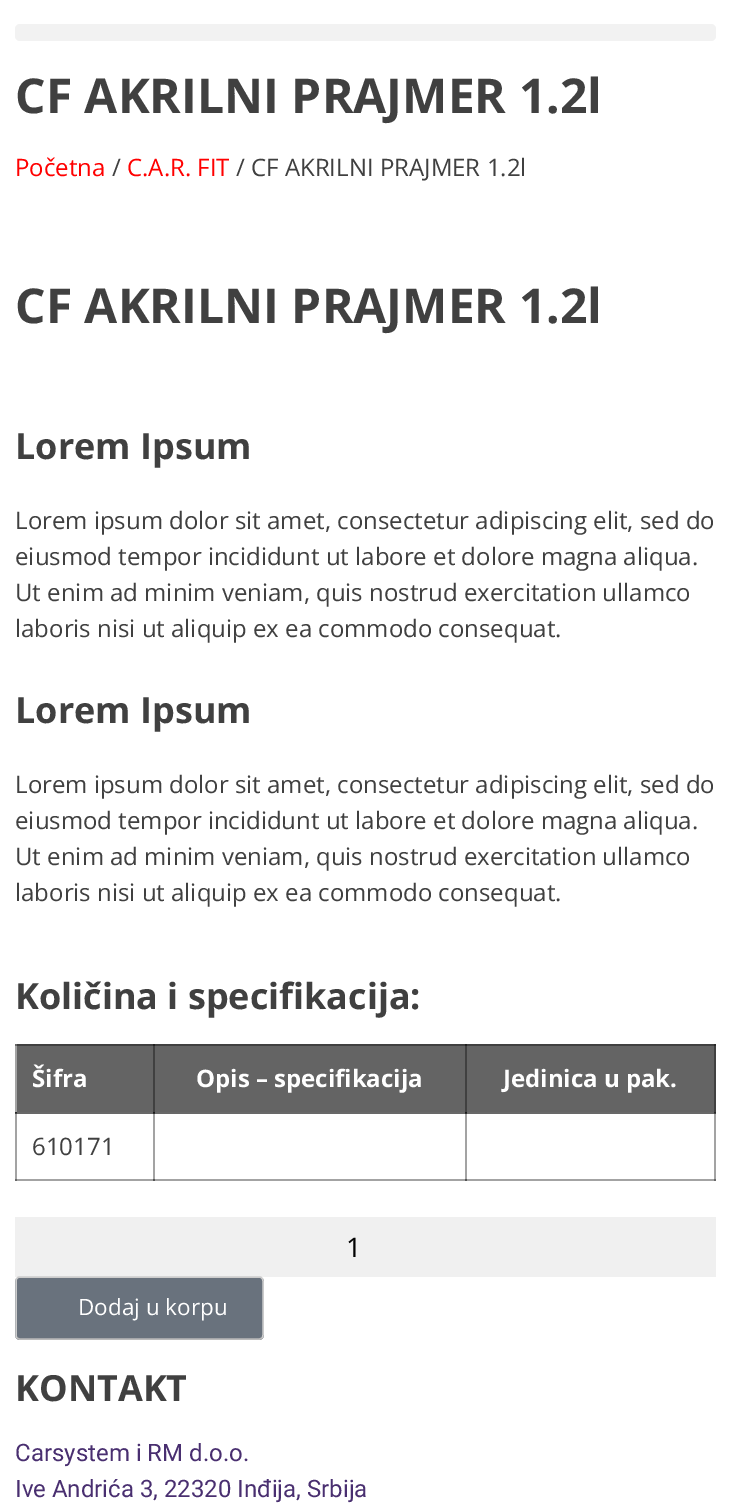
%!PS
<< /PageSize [730 1510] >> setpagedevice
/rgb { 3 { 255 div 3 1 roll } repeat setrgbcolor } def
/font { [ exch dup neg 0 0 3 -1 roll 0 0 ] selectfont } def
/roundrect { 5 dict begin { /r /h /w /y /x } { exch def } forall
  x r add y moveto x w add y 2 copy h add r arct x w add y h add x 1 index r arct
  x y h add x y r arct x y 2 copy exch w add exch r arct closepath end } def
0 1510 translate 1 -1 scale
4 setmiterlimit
255 255 255 rgb
0 0 730 1510 rectfill
[
  [153 1112 2 69 163 163 163]
  [465 1112 2 69 163 163 163]
  [15 1044 2 137 163 163 163]
  [15 1044 2 2 104 104 104]
  [15 1179 701 2 163 163 163]
  [153 1179 2 2 83 83 83]
  [465 1179 2 2 83 83 83]
  [15 1179 2 2 104 104 104]
  [714 1112 2 69 163 163 163]
  [714 1179 2 2 104 104 104]
] { aload pop rgb rectfill } forall
242 242 242 rgb
15 24 701 17 5 roundrect fill
[
  [17 1046 136 66 100 100 100]
  [17 1044 136 2 64 64 64]
  [155 1046 310 66 100 100 100]
  [153 1044 2 68 64 64 64]
  [153 1044 312 2 64 64 64]
  [153 1044 2 2 33 33 33]
  [467 1046 247 66 100 100 100]
  [465 1044 2 68 64 64 64]
  [714 1044 2 68 64 64 64]
  [465 1044 251 2 64 64 64]
  [465 1044 2 2 33 33 33]
  [714 1044 2 2 41 41 41]
  [15 1112 701 2 104 104 104]
  [153 1113 2 1 42 42 42]
  [153 1112 2 1 27 27 27]
  [465 1113 2 1 42 42 42]
  [465 1112 2 1 27 27 27]
  [15 1113 2 1 66 66 66]
  [15 1112 2 1 42 42 42]
  [714 1113 2 1 66 66 66]
  [714 1112 2 1 42 42 42]
  [15 1217 701 60 240 240 240]
] { aload pop rgb rectfill } forall
105 114 125 rgb
15 1277 249 63 5 roundrect fill
187 187 187 rgb
1.5 setlinewidth
262 1337.5 moveto 261.5 1338.5 260.5 1339 259.5 1339 curveto 19.5 1339 lineto 18.5 1339 17.5 1338.5 17 1337.5 curveto stroke
204 204 204 rgb
17 1337.5 moveto 16 1337 16 1336 16 1335 curveto 16 1281 lineto 16 1280 16 1279 17 1278.5 curveto 17.5 1277.5 18.5 1277 19.5 1277 curveto 259.5 1277 lineto 260.5 1277 261.5 1277.5 262 1278.5 curveto 263 1279 263 1280 263 1281 curveto 263 1335 lineto 263 1336 263 1337 262 1337.5 curveto stroke
/OpenSans-Bold 48 font
64 64 64 rgb
15 113 moveto (CF AKRILNI PRAJMER 1.2l) show
/OpenSans-Regular 24 font
255 0 0 rgb
15 176 moveto (Početna) show
64 64 64 rgb
112 176 moveto (/) show
255 0 0 rgb
127 176 moveto (C.A.R. FIT) show
64 64 64 rgb
236 176 moveto (/ CF AKRILNI PRAJMER 1.2l) show
/OpenSans-Bold 48 font
15 323 moveto (CF AKRILNI PRAJMER 1.2l) show
/OpenSans-Bold 36 font
15 459 moveto (Lorem Ipsum) show
/OpenSans-Regular 24 font
[
  [(Lorem ipsum dolor sit amet, consectetur adipiscing elit, sed do) 15 529]
  [(eiusmod tempor incididunt ut labore et dolore magna aliqua.) 15 565]
  [(Ut enim ad minim veniam, quis nostrud exercitation ullamco) 15 601]
  [(laboris nisi ut aliquip ex ea commodo consequat.) 15 637]
] { aload pop moveto show } forall
/OpenSans-Bold 36 font
15 723 moveto (Lorem Ipsum) show
/OpenSans-Regular 24 font
[
  [(Lorem ipsum dolor sit amet, consectetur adipiscing elit, sed do) 15 793]
  [(eiusmod tempor incididunt ut labore et dolore magna aliqua.) 15 829]
  [(Ut enim ad minim veniam, quis nostrud exercitation ullamco) 15 865]
  [(laboris nisi ut aliquip ex ea commodo consequat.) 15 901]
] { aload pop moveto show } forall
/OpenSans-Bold 36 font
15 1009 moveto (Količina i specifikacija:) show
/OpenSans-Bold 24 font
255 255 255 rgb
[
  [(Šifra) 32 1087]
  [(Opis – specifikacija) 196 1087]
  [(Jedinica u pak.) 503 1087]
] { aload pop moveto show } forall
/OpenSans-Regular 24 font
64 64 64 rgb
32 1155 moveto (610171) show
/OpenSans-Regular 27 font
1 1 1 rgb
346 1257 moveto (1) show
/OpenSans-Regular 22.5 font
255 255 255 rgb
78 1315 moveto (Dodaj u korpu) show
/OpenSans-Bold 36 font
64 64 64 rgb
15 1401 moveto (KONTAKT) show
/Roboto-Regular 24 font
73 47 112 rgb
15 1461 moveto (Carsystem i RM d.o.o.) show
15 1497 moveto (Ive Andrića 3, 22320 Inđija, Srbija) show
showpage
